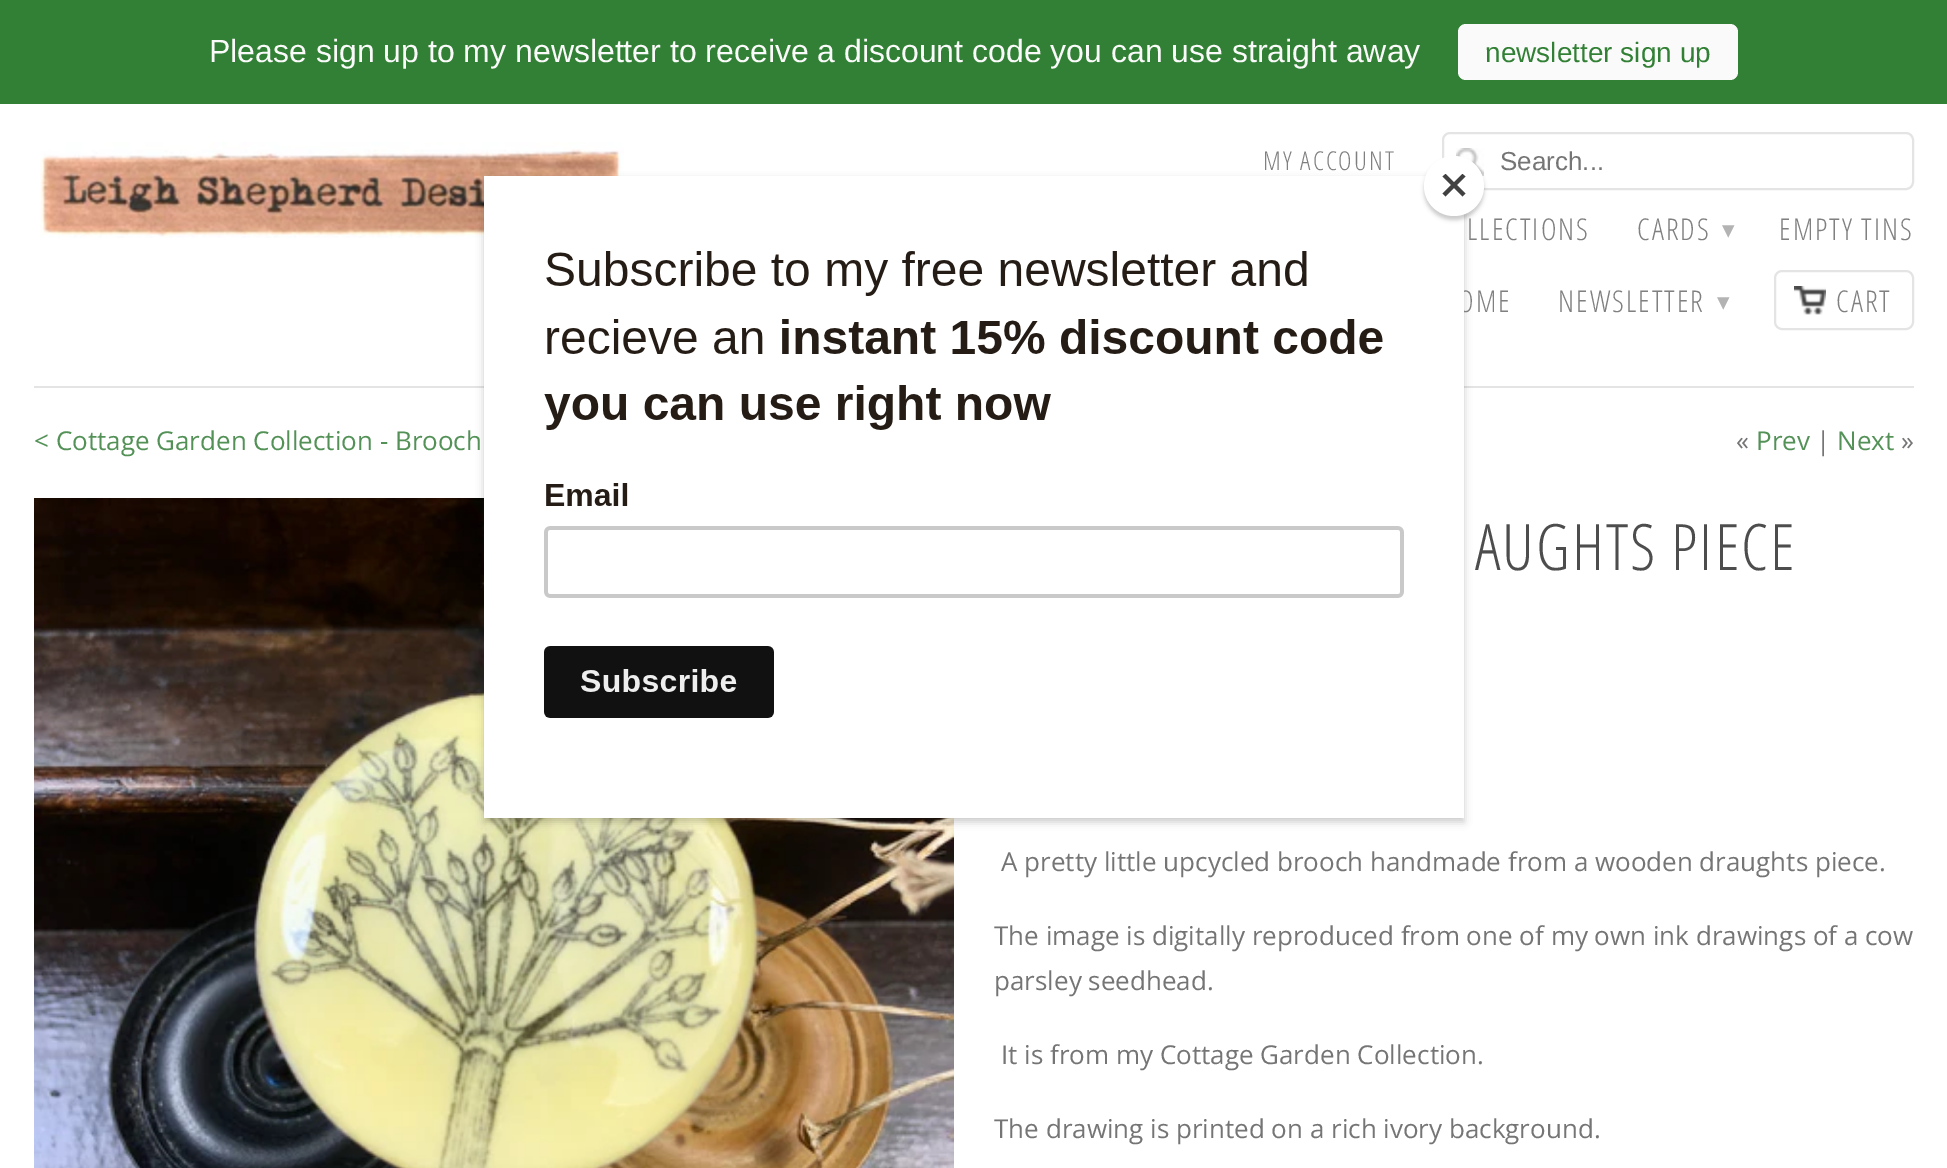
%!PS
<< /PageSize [1947 1168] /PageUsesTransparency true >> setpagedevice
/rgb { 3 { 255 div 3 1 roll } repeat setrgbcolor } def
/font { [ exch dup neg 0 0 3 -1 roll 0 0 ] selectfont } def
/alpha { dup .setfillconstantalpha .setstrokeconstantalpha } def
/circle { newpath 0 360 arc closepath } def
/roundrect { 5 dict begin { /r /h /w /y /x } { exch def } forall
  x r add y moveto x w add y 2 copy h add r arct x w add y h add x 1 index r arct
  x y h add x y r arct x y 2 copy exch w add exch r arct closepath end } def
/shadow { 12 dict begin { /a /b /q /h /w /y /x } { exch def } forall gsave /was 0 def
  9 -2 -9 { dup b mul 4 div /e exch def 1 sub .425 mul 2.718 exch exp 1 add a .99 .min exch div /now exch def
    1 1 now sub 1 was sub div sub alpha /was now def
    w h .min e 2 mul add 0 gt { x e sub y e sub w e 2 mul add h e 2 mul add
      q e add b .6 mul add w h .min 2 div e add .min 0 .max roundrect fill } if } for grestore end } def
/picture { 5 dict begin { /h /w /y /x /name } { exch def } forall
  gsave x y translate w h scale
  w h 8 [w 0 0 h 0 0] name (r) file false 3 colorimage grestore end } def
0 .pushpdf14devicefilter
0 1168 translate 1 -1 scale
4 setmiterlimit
255 255 255 rgb
0 0 1947 1168 rectfill
50 128 53 rgb
0 0 1947 104 rectfill
250 250 250 rgb
1458 24 280 56 8 roundrect fill
(img/2.rgb) 40 142 584 96 picture
(img/3.rgb) 1456 148 28 28 picture
228 228 228 rgb
2 setlinewidth
1443 133 470 56 7 roundrect stroke
34 386 1880 2 rectfill
(img/5.rgb) 34 498 920 670 picture
0 0 0 rgb
484 180 980 642 0 4 0.2 shadow
(img/4.rgb) 1794 286 32 29 picture
228 228 228 rgb
1775 271 138 58 7 roundrect stroke
/LiberationSans-Regular 32 font
250 250 250 rgb
209 62 moveto (Please sign up to my newsletter to receive a discount code you can use straight away) show
/LiberationSans-Regular 28 font
50 128 53 rgb
1485 62 moveto (newsletter sign up) show
/OpenSansCondensed-Light 26 font
128 128 128 rgb
1263 170 moveto 2 0 (MY ACCOUNT) ashow
/LiberationSans-Regular 26 font
117 117 117 rgb
1500 170 moveto (Search...) show
/OpenSansCondensed-Light 30 font
128 128 128 rgb
1467 240 moveto 2 0 (LLECTIONS) ashow
1637 240 moveto 2 0 (CARDS) ashow
/DejaVuSans-Regular 25 font
179 179 179 rgb
1722 238 moveto 2 0 (▾) ashow
/OpenSansCondensed-Light 30 font
128 128 128 rgb
1779 240 moveto 2 0 (EMPTY TINS) ashow
1458 312 moveto 2 0 (OME) ashow
(img/1.rgb) 484 176 980 642 picture
0 0 0 rgb
1424 160 60 60 30 2 0.2 shadow
255 255 255 rgb
1454 186 30 circle fill
65 65 65 rgb
1462.5 174 moveto 1465.5 176.5 lineto 1445.5 196.5 lineto 1442.5 193.5 lineto closepath fill
1442.5 176.5 moveto 1445.5 174 lineto 1465.5 193.5 lineto 1462.5 196.5 lineto closepath fill
128 128 128 rgb
1558 312 moveto 2 0 (NEWSLETTER) ashow
/DejaVuSans-Regular 25 font
179 179 179 rgb
1717 310 moveto 2 0 (▾) ashow
/OpenSansCondensed-Light 30 font
128 128 128 rgb
1836 312 moveto 2 0 (CART) ashow
/OpenSans-Regular 26 font
83 145 87 rgb
34 450 moveto (< Cottage Garden Collection - Brooch) show
117 117 117 rgb
1736 450 moveto («) show
83 145 87 rgb
1756 450 moveto (Prev) show
117 117 117 rgb
1816 450 moveto (|) show
83 145 87 rgb
1837 450 moveto (Next) show
117 117 117 rgb
1901 450 moveto (») show
/OpenSansCondensed-Light 64 font
77 77 77 rgb
1475 570 moveto 2 0 (AUGHTS PIECE) ashow
/OpenSans-Regular 26 font
117 117 117 rgb
[
  [(A pretty little upcycled brooch handmade from a wooden draughts piece.) 1001 871]
  [(The image is digitally reproduced from one of my own ink drawings of a cow) 994 945]
  [(parsley seedhead.) 994 990]
  [(It is from my Cottage Garden Collection.) 1001 1064]
  [(The drawing is printed on a rich ivory background.) 994 1138]
] { aload pop moveto show } forall
.poppdf14devicefilter showpage
